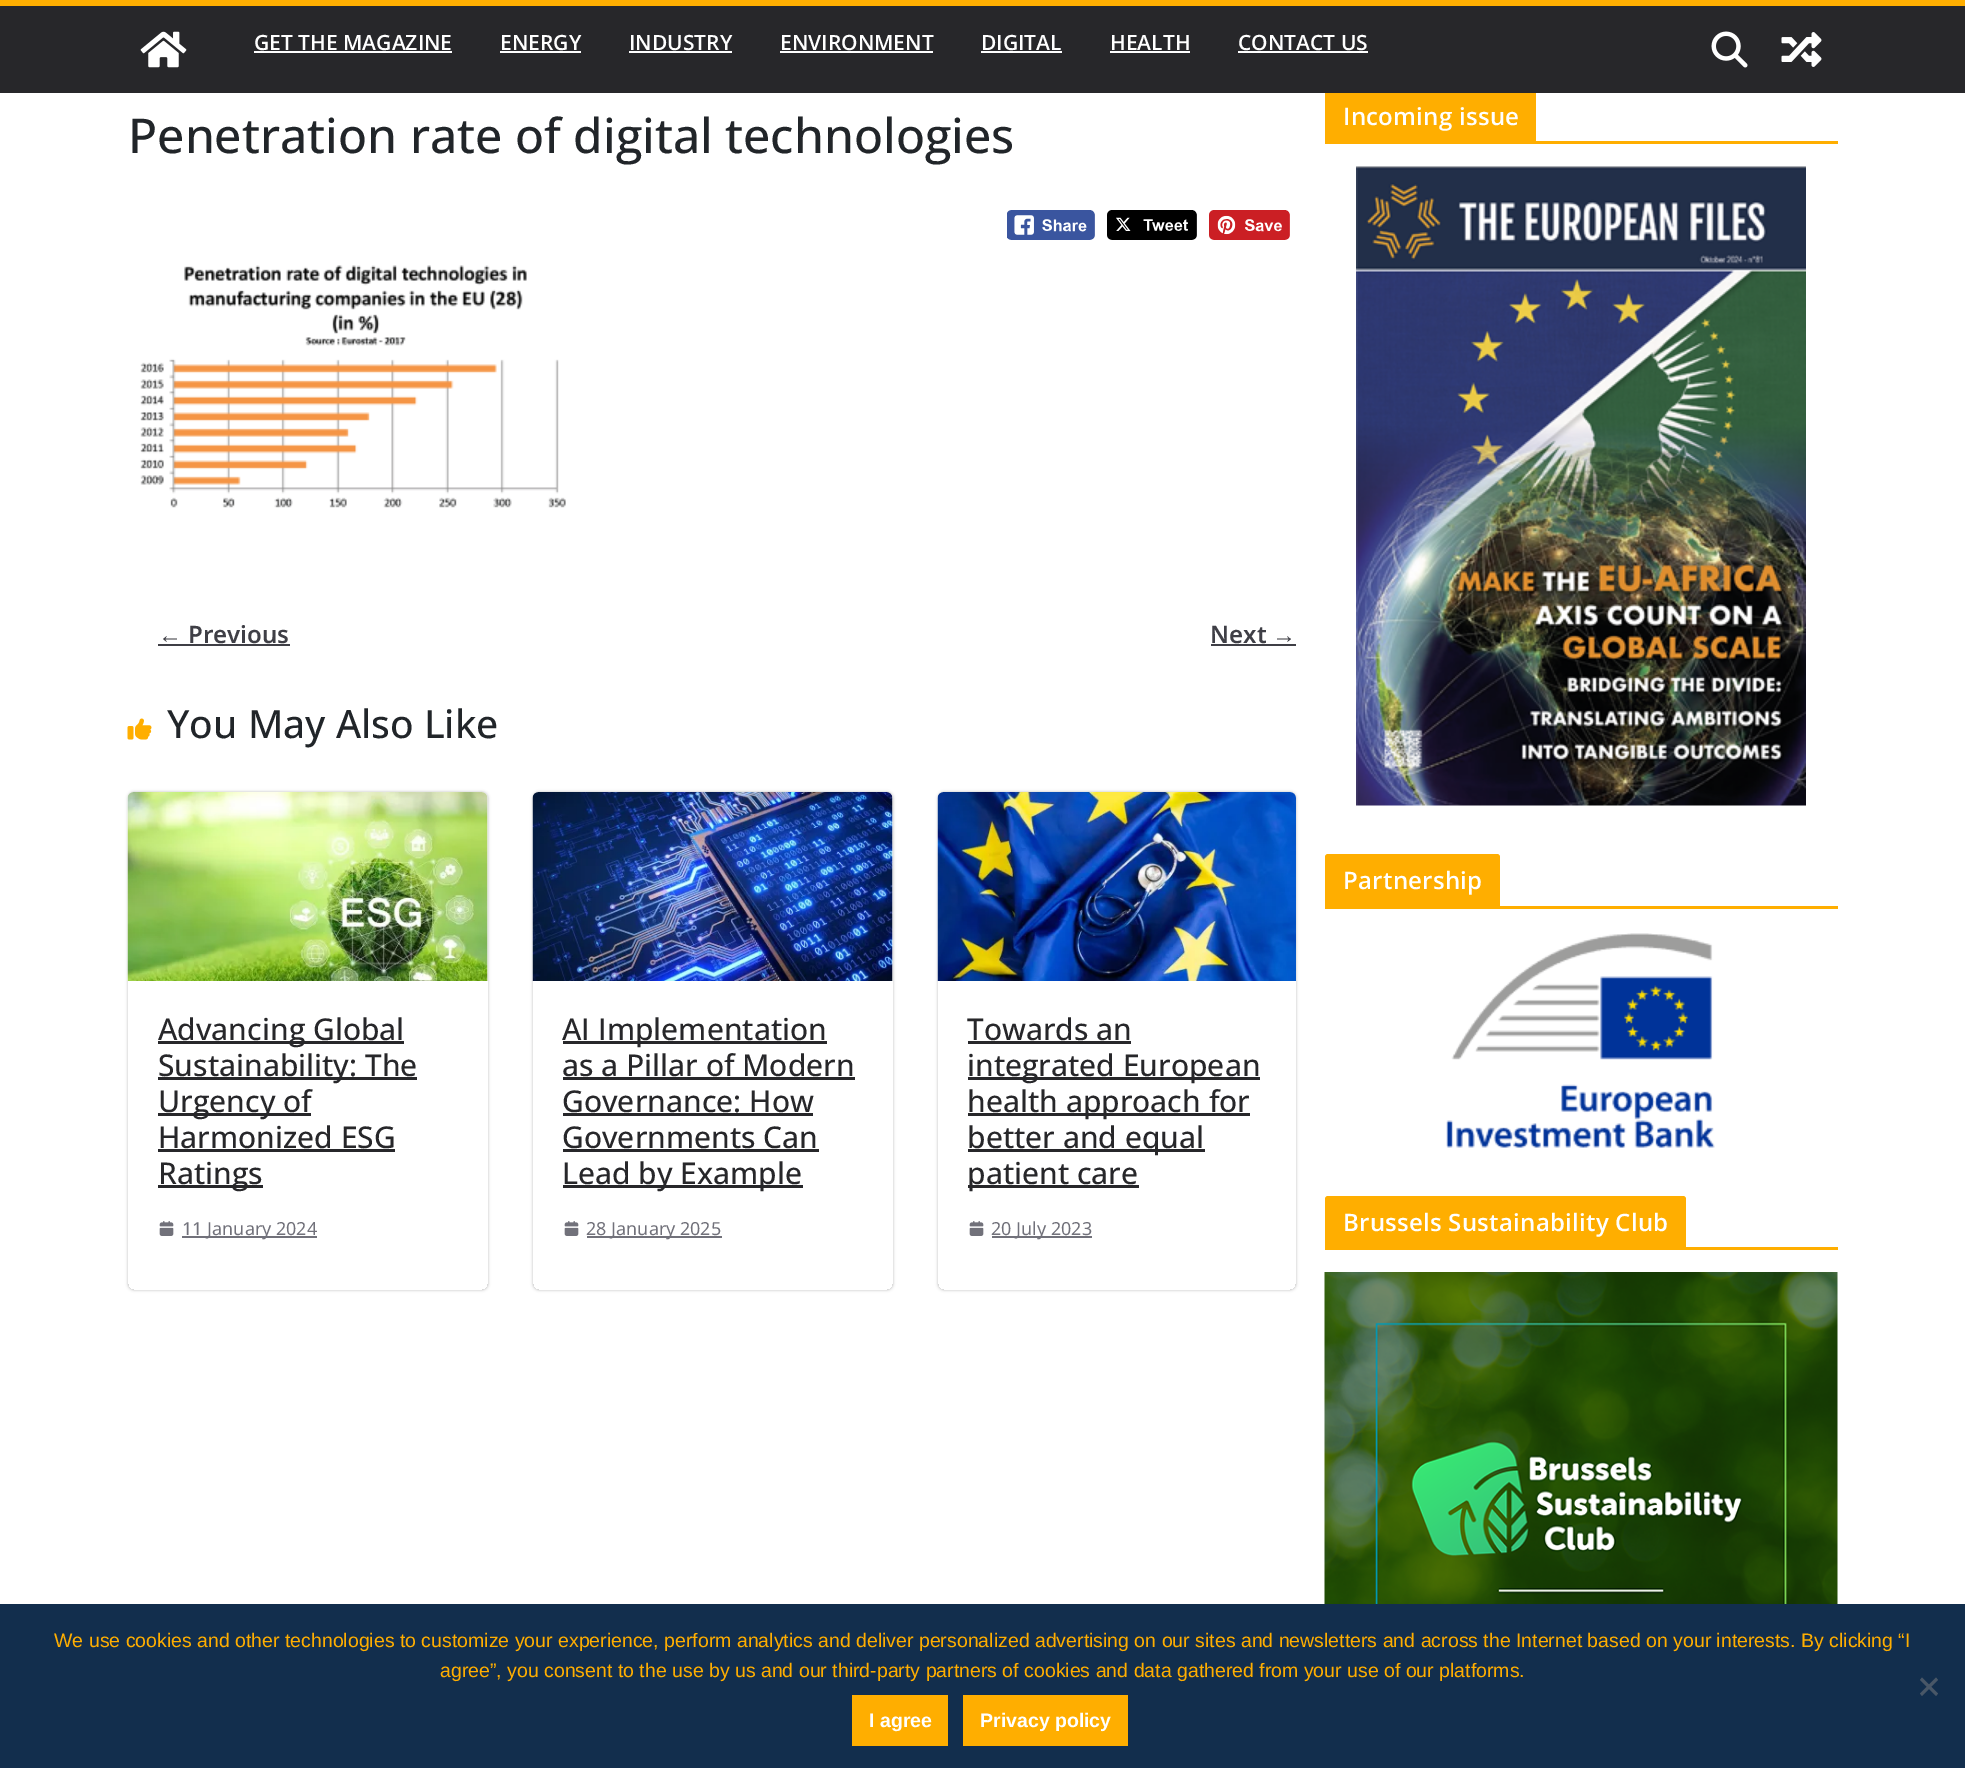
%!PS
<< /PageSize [1965 1768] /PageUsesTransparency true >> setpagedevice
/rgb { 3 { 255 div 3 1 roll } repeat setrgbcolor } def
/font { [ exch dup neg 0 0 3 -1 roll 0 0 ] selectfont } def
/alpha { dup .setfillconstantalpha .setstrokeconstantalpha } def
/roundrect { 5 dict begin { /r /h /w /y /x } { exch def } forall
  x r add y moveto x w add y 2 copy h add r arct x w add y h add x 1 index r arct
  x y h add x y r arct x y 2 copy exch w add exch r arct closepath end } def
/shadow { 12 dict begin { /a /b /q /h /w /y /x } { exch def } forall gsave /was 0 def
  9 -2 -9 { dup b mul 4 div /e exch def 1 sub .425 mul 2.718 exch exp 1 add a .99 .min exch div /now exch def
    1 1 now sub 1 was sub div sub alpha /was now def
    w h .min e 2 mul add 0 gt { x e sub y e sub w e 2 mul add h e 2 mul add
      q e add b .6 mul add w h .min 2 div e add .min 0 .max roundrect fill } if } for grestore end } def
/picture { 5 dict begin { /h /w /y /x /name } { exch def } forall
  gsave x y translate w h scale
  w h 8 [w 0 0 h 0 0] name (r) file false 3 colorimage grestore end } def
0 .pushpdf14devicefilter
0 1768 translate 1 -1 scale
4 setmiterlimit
255 255 255 rgb
0 0 1965 1768 rectfill
39 39 42 rgb
0 6 1965 87 rectfill
255 174 0 rgb
0 0 1965 6 rectfill
(img/1.rgb) 140 31 47 37 picture
[
  [254 51 198 2 255 255 255]
  [500 51 81 2 255 255 255]
  [629 51 103 2 255 255 255]
  [780 51 153 2 255 255 255]
  [981 51 81 2 255 255 255]
  [1110 51 80 2 255 255 255]
  [1238 51 130 2 255 255 255]
] { aload pop rgb rectfill } forall
(img/2.rgb) 1711 31 37 37 picture
(img/3.rgb) 1781 32 41 35 picture
(img/4.rgb) 1007 210 88 30 picture
(img/5.rgb) 1107 210 90 30 picture
(img/6.rgb) 1209 210 81 30 picture
(img/7.rgb) 140 265 426 243 picture
63 63 70 rgb
158 644 132 2 rectfill
1211 644 85 2 rectfill
(img/8.rgb) 127 718 25 22 picture
gsave
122 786 moveto 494 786 lineto 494 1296 lineto 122 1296 lineto closepath 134 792 moveto 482 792 lineto 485.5 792 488 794.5 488 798 curveto 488 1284 lineto 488 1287.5 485.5 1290 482 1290 curveto 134 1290 lineto 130.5 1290 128 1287.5 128 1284 curveto 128 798 lineto 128 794.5 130.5 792 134 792 curveto closepath eoclip newpath
0 0 0 rgb
128 792 360 498 6 1.5 0.24 shadow
grestore
(img/9.rgb) 127 792 361 189 picture
[
  [158 1041 246 3 39 39 42]
  [158 1077 259 3 39 39 42]
  [158 1113 153 3 39 39 42]
  [158 1149 237 3 39 39 42]
  [158 1185 105 3 39 39 42]
] { aload pop rgb rectfill } forall
(img/10.rgb) 159 1221 15 15 picture
113 113 122 rgb
182 1236 135 2 rectfill
gsave
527 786 moveto 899 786 lineto 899 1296 lineto 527 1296 lineto closepath 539 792 moveto 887 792 lineto 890.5 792 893 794.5 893 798 curveto 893 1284 lineto 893 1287.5 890.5 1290 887 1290 curveto 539 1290 lineto 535.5 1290 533 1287.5 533 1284 curveto 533 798 lineto 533 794.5 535.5 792 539 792 curveto closepath eoclip newpath
0 0 0 rgb
533 792 360 498 6 1.5 0.24 shadow
grestore
(img/11.rgb) 532 792 361 189 picture
[
  [563 1041 264 3 39 39 42]
  [563 1077 292 3 39 39 42]
  [563 1113 250 3 39 39 42]
  [563 1149 256 3 39 39 42]
  [563 1185 240 3 39 39 42]
] { aload pop rgb rectfill } forall
(img/10.rgb) 564 1221 15 15 picture
113 113 122 rgb
587 1236 135 2 rectfill
gsave
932 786 moveto 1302 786 lineto 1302 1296 lineto 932 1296 lineto closepath 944 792 moveto 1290 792 lineto 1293.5 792 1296 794.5 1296 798 curveto 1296 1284 lineto 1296 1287.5 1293.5 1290 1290 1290 curveto 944 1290 lineto 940.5 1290 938 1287.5 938 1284 curveto 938 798 lineto 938 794.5 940.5 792 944 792 curveto closepath eoclip newpath
0 0 0 rgb
938 792 358 498 6 1.5 0.24 shadow
grestore
(img/12.rgb) 937 792 359 189 picture
[
  [968 1041 163 3 39 39 42]
  [968 1077 292 3 39 39 42]
  [968 1113 282 3 39 39 42]
  [968 1149 237 3 39 39 42]
  [968 1185 171 3 39 39 42]
] { aload pop rgb rectfill } forall
(img/10.rgb) 969 1221 15 15 picture
[
  [992 1236 100 2 113 113 122]
  [1325 141 513 3 255 174 0]
  [1325 93 211 48 255 174 0]
] { aload pop rgb rectfill } forall
(img/13.rgb) 1356 166 450 640 picture
1325 906 513 3 rectfill
1328 854 moveto 1497 854 lineto 1498.5 854 1500 855.5 1500 857 curveto 1500 906 lineto 1325 906 lineto 1325 857 lineto 1325 855.5 1326.5 854 1328 854 curveto closepath fill
(img/14.rgb) 1446 933 269 215 picture
1325 1247 513 3 rectfill
1328 1196 moveto 1683 1196 lineto 1684.5 1196 1686 1197.5 1686 1199 curveto 1686 1247 lineto 1325 1247 lineto 1325 1199 lineto 1325 1197.5 1326.5 1196 1328 1196 curveto closepath fill
(img/15.rgb) 1324 1272 514 332 picture
18 46 77 rgb
0 1604 1965 164 rectfill
73 87 103 rgb
1936 1677.5 moveto 1938 1680 lineto 1922 1696 lineto 1920 1693.5 lineto closepath fill
1920 1680 moveto 1922 1677.5 lineto 1938 1693.5 lineto 1936 1696 lineto closepath fill
255 174 0 rgb
852 1695 96 51 rectfill
963 1695 165 51 rectfill
/OpenSans-SemiBold 21 font
255 255 255 rgb
[
  [(GET THE MAGAZINE) 254 50]
  [(ENERGY) 500 50]
  [(INDUSTRY) 629 50]
  [(ENVIRONMENT) 780 50]
  [(DIGITAL) 981 50]
  [(HEALTH) 1110 50]
  [(CONTACT US) 1238 50]
] { aload pop moveto show } forall
/OpenSans-Medium 48 font
33 37 41 rgb
128 153 moveto (Penetration rate of digital technologies) show
/LiberationSans-Bold 24 font
63 63 70 rgb
158 643 moveto (←) show
/NotoSans-SemiBold 24 font
188 643 moveto (Previous) show
1210 643 moveto (Next) show
/LiberationSans-Bold 24 font
1272 643 moveto (→) show
/OpenSans-Medium 39 font
33 37 41 rgb
167 738 moveto (You May Also Like) show
/OpenSans-Medium 30 font
39 39 42 rgb
[
  [(Advancing Global) 158 1040]
  [(Sustainability: The) 158 1076]
  [(Urgency of) 158 1112]
  [(Harmonized ESG) 158 1148]
  [(Ratings) 158 1184]
] { aload pop moveto show } forall
/NotoSans-Regular 18 font
113 113 122 rgb
182 1235 moveto (11 January 2024) show
/OpenSans-Medium 30 font
39 39 42 rgb
[
  [(AI Implementation) 562 1040]
  [(as a Pillar of Modern) 562 1076]
  [(Governance: How) 562 1112]
  [(Governments Can) 562 1148]
  [(Lead by Example) 562 1184]
] { aload pop moveto show } forall
/NotoSans-Regular 18 font
113 113 122 rgb
586 1235 moveto (28 January 2025) show
/OpenSans-Medium 30 font
39 39 42 rgb
[
  [(Towards an) 967 1040]
  [(integrated European) 967 1076]
  [(health approach for) 967 1112]
  [(better and equal) 967 1148]
  [(patient care) 967 1184]
] { aload pop moveto show } forall
/NotoSans-Regular 18 font
113 113 122 rgb
991 1235 moveto (20 July 2023) show
/OpenSans-SemiBold 24 font
255 255 255 rgb
1343 125 moveto 0.25 0 (Incoming issue) ashow
1343 889 moveto 0.25 0 (Partnership) ashow
1343 1231 moveto 0.25 0 (Brussels Sustainability Club) ashow
/LiberationSans-Regular 19.5 font
255 174 0 rgb
54 1647 moveto (We use cookies and other technologies to customize your experience, perform analytics and deliver personalized advertising on our sites and newsletters and across the Internet based on your interests. By clicking “I) show
440 1677 moveto (agree”, you consent to the use by us and our third-party partners of cookies and data gathered from your use of our platforms.) show
/LiberationSans-Bold 19.5 font
255 255 255 rgb
869 1727 moveto (I agree) show
980 1727 moveto (Privacy policy) show
.poppdf14devicefilter showpage
